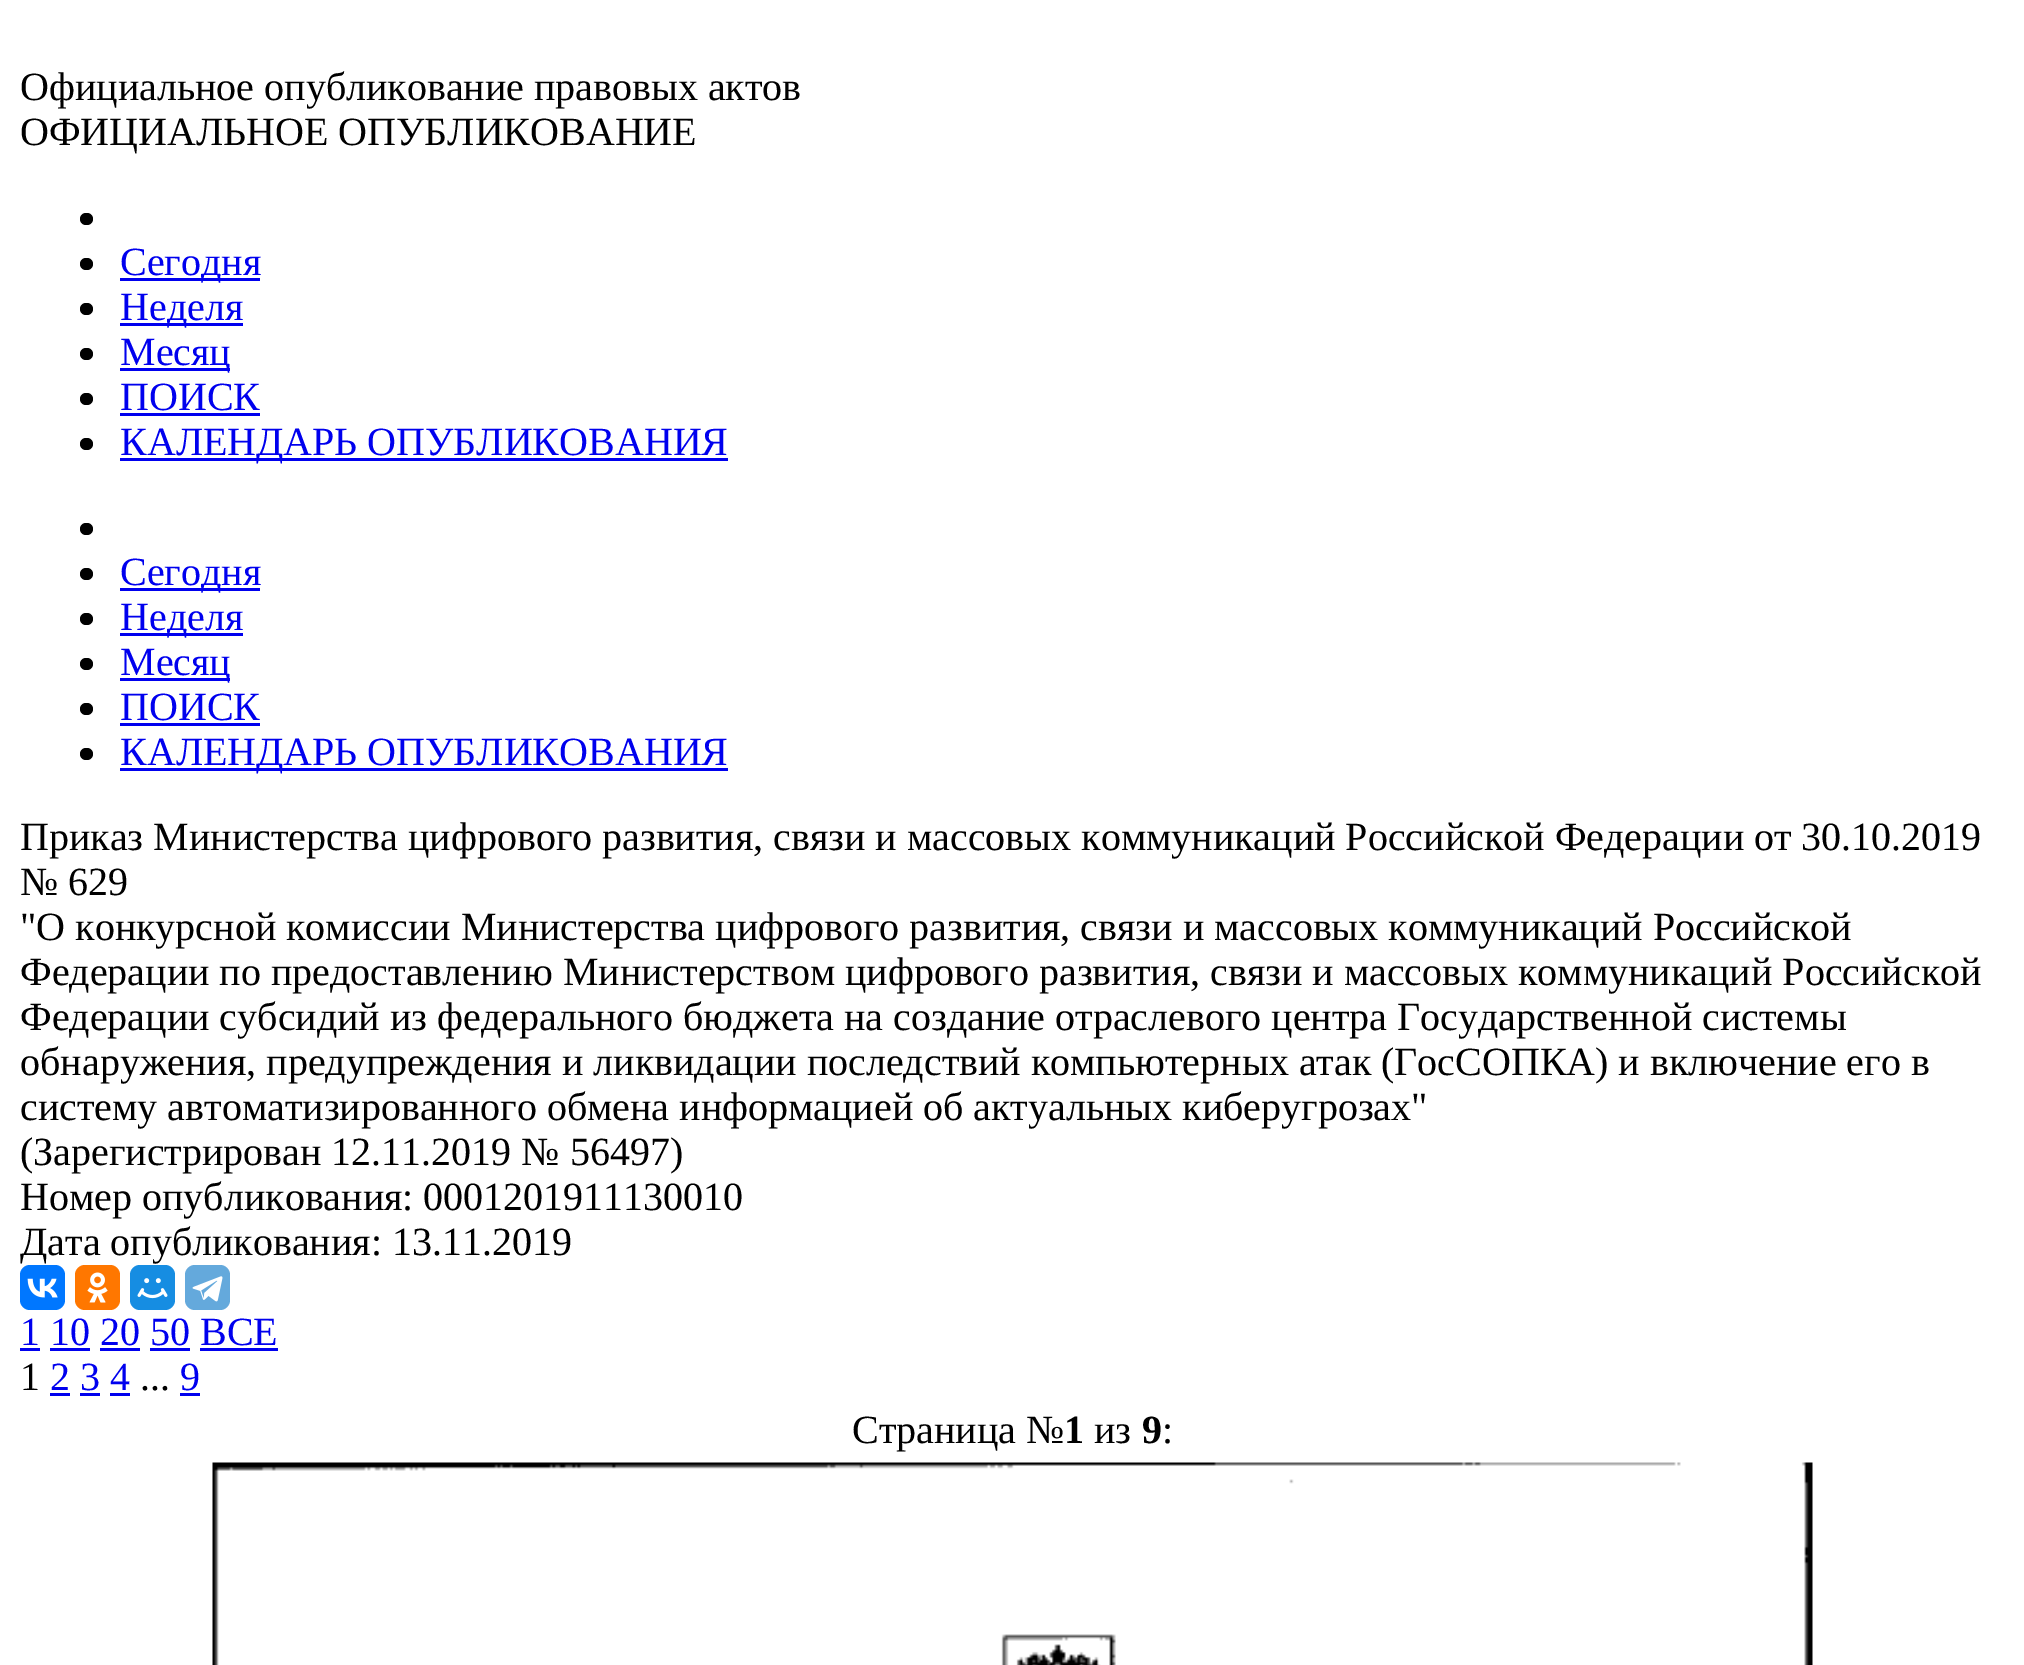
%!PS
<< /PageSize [2024 1665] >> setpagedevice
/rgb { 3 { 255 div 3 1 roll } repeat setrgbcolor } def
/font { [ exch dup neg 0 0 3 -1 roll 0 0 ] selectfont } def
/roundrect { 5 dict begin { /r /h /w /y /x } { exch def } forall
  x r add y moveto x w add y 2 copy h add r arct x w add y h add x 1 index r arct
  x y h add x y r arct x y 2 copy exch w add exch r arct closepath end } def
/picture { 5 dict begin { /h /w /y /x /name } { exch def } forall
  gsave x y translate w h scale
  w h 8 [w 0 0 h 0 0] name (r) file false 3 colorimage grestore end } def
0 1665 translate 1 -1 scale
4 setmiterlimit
255 255 255 rgb
0 0 2024 1665 rectfill
0 0 0 rgb
80 213 13 12 6 roundrect fill
80 258 13 12 6 roundrect fill
0 0 238 rgb
120 278 140 3 rectfill
0 0 0 rgb
80 303 13 12 6 roundrect fill
0 0 238 rgb
120 323 123 3 rectfill
0 0 0 rgb
80 348 13 12 6 roundrect fill
0 0 238 rgb
120 368 110 3 rectfill
0 0 0 rgb
80 393 13 12 6 roundrect fill
0 0 238 rgb
120 413 140 3 rectfill
0 0 0 rgb
80 438 13 12 6 roundrect fill
0 0 238 rgb
120 458 608 3 rectfill
0 0 0 rgb
80 523 13 12 6 roundrect fill
80 568 13 12 6 roundrect fill
0 0 238 rgb
120 588 140 3 rectfill
0 0 0 rgb
80 613 13 12 6 roundrect fill
0 0 238 rgb
120 633 123 3 rectfill
0 0 0 rgb
80 658 13 12 6 roundrect fill
0 0 238 rgb
120 678 110 3 rectfill
0 0 0 rgb
80 703 13 12 6 roundrect fill
0 0 238 rgb
120 723 140 3 rectfill
0 0 0 rgb
80 748 13 12 6 roundrect fill
0 0 238 rgb
120 768 608 3 rectfill
0 119 255 rgb
20 1265 45 45 10 roundrect fill
(img/1.rgb) 27 1278 31 20 picture
255 119 0 rgb
75 1265 45 45 10 roundrect fill
(img/2.rgb) 87 1272 21 31 picture
22 141 226 rgb
130 1265 45 45 10 roundrect fill
(img/3.rgb) 137 1278 31 21 picture
100 169 220 rgb
185 1265 45 45 10 roundrect fill
(img/4.rgb) 192 1276 31 26 picture
[
  [20 1348 20 3 0 0 238]
  [50 1348 40 3 0 0 238]
  [100 1348 40 3 0 0 238]
  [150 1348 40 3 0 0 238]
  [200 1348 78 3 0 0 238]
  [50 1393 20 3 0 0 238]
  [180 1393 20 3 0 0 238]
  [80 1393 20 3 0 0 238]
  [110 1393 20 3 0 0 238]
] { aload pop rgb rectfill } forall
(img/5.rgb) 212 1462 1601 203 picture
/LiberationSerif-Regular 40 font
0 0 0 rgb
20 100 moveto (Официальное опубликование правовых актов) show
20 145 moveto (ОФИЦИАЛЬНОЕ ОПУБЛИКОВАНИЕ) show
0 0 238 rgb
[
  [(Сегодня) 120 275]
  [(Неделя) 120 320]
  [(Месяц) 120 365]
  [(ПОИСК) 120 410]
  [(КАЛЕНДАРЬ ОПУБЛИКОВАНИЯ) 120 455]
  [(Сегодня) 120 585]
  [(Неделя) 120 630]
  [(Месяц) 120 675]
  [(ПОИСК) 120 720]
  [(КАЛЕНДАРЬ ОПУБЛИКОВАНИЯ) 120 765]
] { aload pop moveto show } forall
0 0 0 rgb
[
  [(Приказ Министерства цифрового развития, связи и массовых коммуникаций Российской Федерации от 30.10.2019) 20 850]
  [(№ 629) 20 895]
  [("О конкурсной комиссии Министерства цифрового развития, связи и массовых коммуникаций Российской) 20 940]
  [(Федерации по предоставлению Министерством цифрового развития, связи и массовых коммуникаций Российской) 20 985]
  [(Федерации субсидий из федерального бюджета на создание отраслевого центра Государственной системы) 20 1030]
  [(обнаружения, предупреждения и ликвидации последствий компьютерных атак \(ГосСОПКА\) и включение его в) 20 1075]
  [(систему автоматизированного обмена информацией об актуальных киберугрозах") 20 1120]
  [(\(Зарегистрирован 12.11.2019 № 56497\)) 20 1165]
  [(Номер опубликования: 0001201911130010) 20 1210]
  [(Дата опубликования: 13.11.2019) 20 1255]
] { aload pop moveto show } forall
0 0 238 rgb
20 1345 moveto (1 10 20 50 ВСЕ) show
0 0 0 rgb
20 1390 moveto (1) show
0 0 238 rgb
50 1390 moveto (2 3 4) show
0 0 0 rgb
140 1390 moveto (...) show
0 0 238 rgb
180 1390 moveto (9) show
0 0 0 rgb
852 1443 moveto (Страница №) show
/LiberationSerif-Bold 40 font
1064 1443 moveto (1) show
/LiberationSerif-Regular 40 font
1094 1443 moveto (из) show
/LiberationSerif-Bold 40 font
1142 1443 moveto (9) show
/LiberationSerif-Regular 40 font
1162 1443 moveto (:) show
showpage
